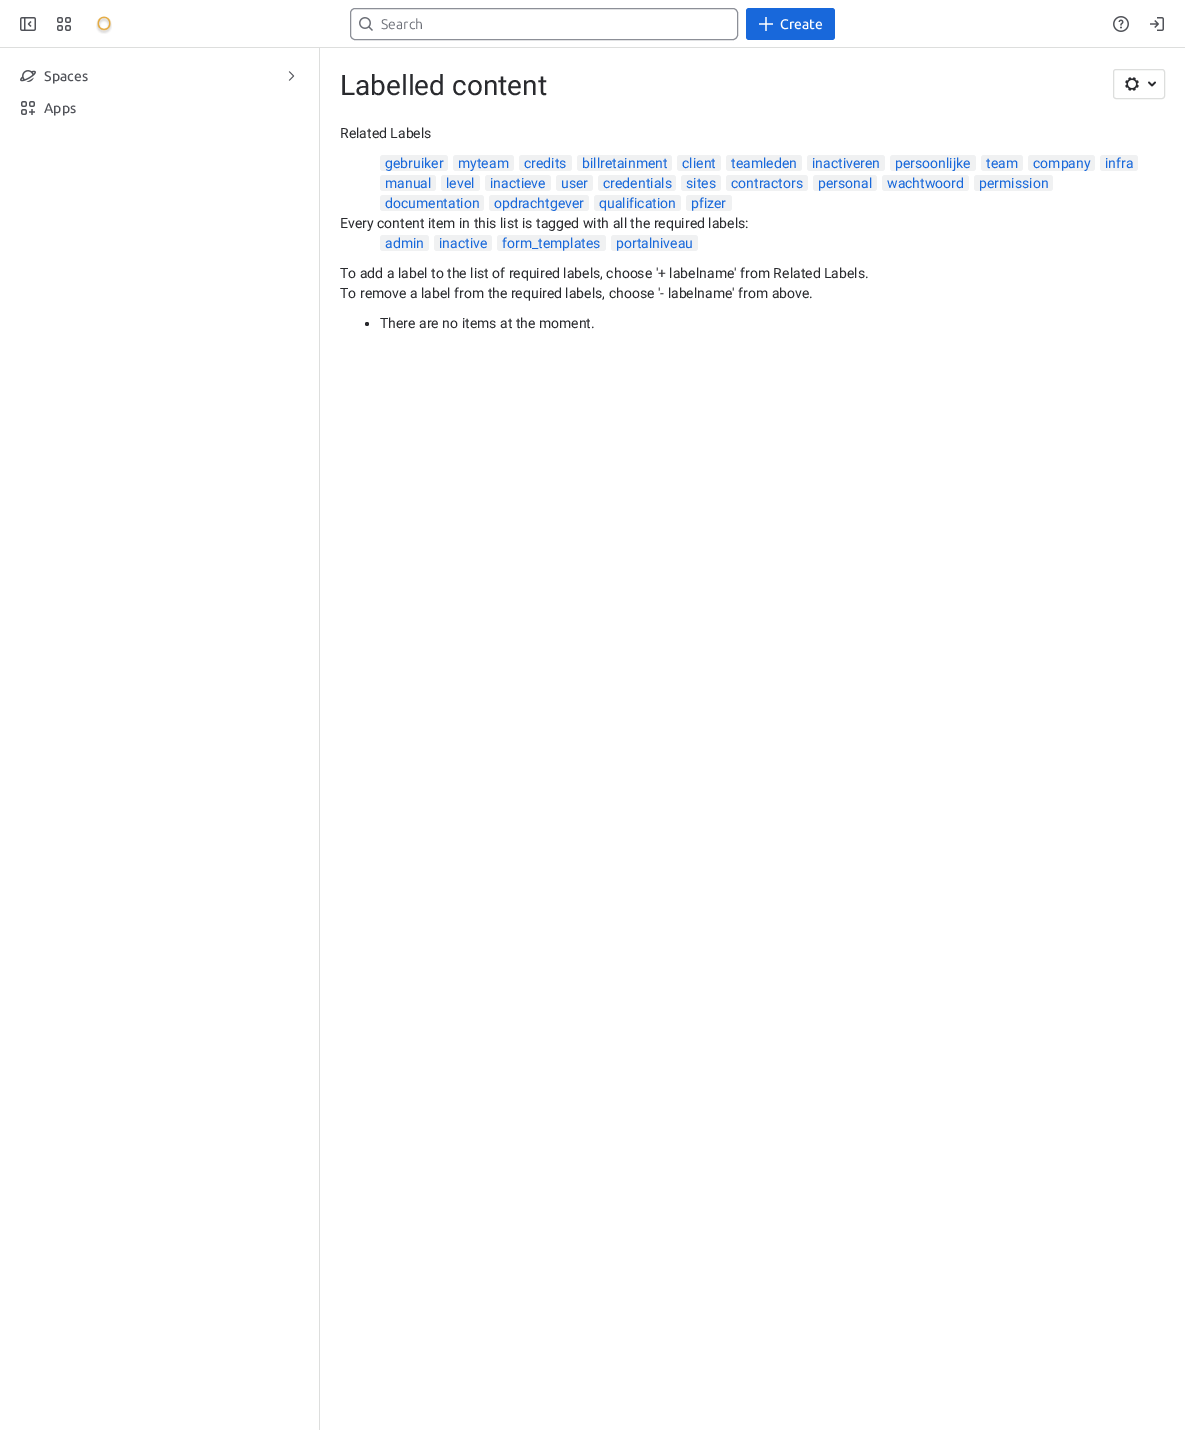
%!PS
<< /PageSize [1185 1430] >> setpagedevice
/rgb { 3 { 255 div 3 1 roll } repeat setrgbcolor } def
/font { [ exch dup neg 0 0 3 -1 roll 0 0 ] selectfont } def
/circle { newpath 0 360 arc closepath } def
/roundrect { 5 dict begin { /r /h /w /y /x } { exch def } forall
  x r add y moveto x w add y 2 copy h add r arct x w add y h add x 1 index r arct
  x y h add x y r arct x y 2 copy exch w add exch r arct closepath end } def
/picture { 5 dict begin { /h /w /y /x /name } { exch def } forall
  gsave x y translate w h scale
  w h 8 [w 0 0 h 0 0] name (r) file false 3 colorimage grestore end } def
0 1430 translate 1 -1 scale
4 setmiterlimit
255 255 255 rgb
0 0 1185 1430 rectfill
221 222 221 rgb
0 47 1185 1 rectfill
(img/1.rgb) 20 17 16 14 picture
(img/2.rgb) 57 17 14 14 picture
(img/3.rgb) 96 16 16 18 picture
140 143 151 rgb
350.5 8.5 387 31 4.5 roundrect stroke
(img/4.rgb) 359 17 14 14 picture
24 104 219 rgb
746 8 89 32 3 roundrect fill
(img/5.rgb) 759 17 14 14 picture
(img/6.rgb) 1113 16 16 16 picture
(img/7.rgb) 1150 17 14 14 picture
221 222 221 rgb
319 48 1 1382 rectfill
(img/8.rgb) 20 70 16 12 picture
(img/9.rgb) 288 71 7 10 picture
(img/10.rgb) 21 101 14 14 picture
1113.5 69.5 51 29 2.5 roundrect stroke
(img/11.rgb) 1125 77 14 14 picture
(img/12.rgb) 1148 81 8 6 picture
240 241 242 rgb
380 155 68 16 3 roundrect fill
453 155 61 16 3 roundrect fill
519 155 53 16 3 roundrect fill
577 155 95 16 3 roundrect fill
677 155 44 16 3 roundrect fill
726 155 76 16 3 roundrect fill
807 155 78 16 3 roundrect fill
890 155 86 16 3 roundrect fill
981 155 42 16 3 roundrect fill
1028 155 67 16 3 roundrect fill
1100 155 38 16 3 roundrect fill
380 175 56 16 3 roundrect fill
441 175 39 16 3 roundrect fill
485 175 66 16 3 roundrect fill
556 175 37 16 3 roundrect fill
598 175 78 16 3 roundrect fill
681 175 40 16 3 roundrect fill
726 175 82 16 3 roundrect fill
813 175 64 16 3 roundrect fill
882 175 87 16 3 roundrect fill
974 175 79 16 3 roundrect fill
380 195 104 16 3 roundrect fill
489 195 100 16 3 roundrect fill
594 195 87 16 3 roundrect fill
686 195 46 16 3 roundrect fill
380 235 49 16 3 roundrect fill
434 235 58 16 3 roundrect fill
497 235 109 16 3 roundrect fill
611 235 87 16 3 roundrect fill
41 42 46 rgb
367 324 2 circle fill
/Ubuntu-Regular 14 font
107 110 118 rgb
381 29 moveto (Search) show
/Ubuntu-Medium 14 font
255 255 255 rgb
780 29 moveto (Create) show
80 82 88 rgb
44 81 moveto (Spaces) show
44 113 moveto (Apps) show
/Roboto-Regular 28 font
41 42 46 rgb
340 95 moveto (Labelled content) show
/Roboto-Regular 14 font
340 138 moveto (Related Labels) show
24 104 219 rgb
[
  [(gebruiker) 385 168]
  [(myteam) 458 168]
  [(credits) 524 168]
  [(billretainment) 582 168]
  [(client) 682 168]
  [(teamleden) 731 168]
  [(inactiveren) 812 168]
  [(persoonlijke) 895 168]
  [(team) 986 168]
  [(company) 1033 168]
  [(infra) 1105 168]
  [(manual) 385 188]
  [(level) 446 188]
  [(inactieve) 490 188]
  [(user) 561 188]
  [(credentials) 603 188]
  [(sites) 686 188]
  [(contractors) 731 188]
  [(personal) 818 188]
  [(wachtwoord) 887 188]
  [(permission) 979 188]
  [(documentation) 385 208]
  [(opdrachtgever) 494 208]
  [(qualification) 599 208]
  [(pfizer) 691 208]
] { aload pop moveto show } forall
41 42 46 rgb
340 228 moveto (Every content item in this list is tagged with all the required labels:) show
24 104 219 rgb
[
  [(admin) 385 248]
  [(inactive) 439 248]
  [(form_templates) 502 248]
  [(portalniveau) 616 248]
] { aload pop moveto show } forall
41 42 46 rgb
[
  [(To add a label to the list of required labels, choose '+ labelname' from Related Labels.) 340 278]
  [(To remove a label from the required labels, choose '- labelname' from above.) 340 298]
  [(There are no items at the moment.) 380 328]
] { aload pop moveto show } forall
showpage
